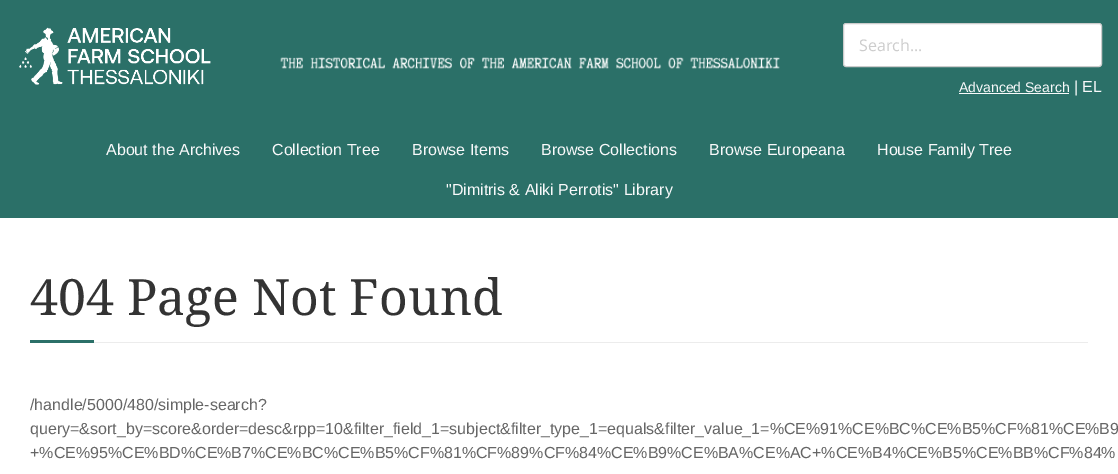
%!PS
<< /PageSize [1118 474] >> setpagedevice
/rgb { 3 { 255 div 3 1 roll } repeat setrgbcolor } def
/font { [ exch dup neg 0 0 3 -1 roll 0 0 ] selectfont } def
/roundrect { 5 dict begin { /r /h /w /y /x } { exch def } forall
  x r add y moveto x w add y 2 copy h add r arct x w add y h add x 1 index r arct
  x y h add x y r arct x y 2 copy exch w add exch r arct closepath end } def
/picture { 5 dict begin { /h /w /y /x /name } { exch def } forall
  gsave x y translate w h scale
  w h 8 [w 0 0 h 0 0] name (r) file false 3 colorimage grestore end } def
0 474 translate 1 -1 scale
4 setmiterlimit
255 255 255 rgb
0 0 1118 474 rectfill
43 112 104 rgb
0 0 1118 218 rectfill
(img/1.rgb) 19 27 192 58 picture
(img/2.rgb) 280 57 500 12 picture
255 255 255 rgb
843.5 23.5 258 43 2.5 roundrect gsave fill grestore
204 204 204 rgb
stroke
[
  [959 93 110 1 248 249 250]
  [94 342 994 1 236 236 236]
  [30 340 64 3 43 112 104]
] { aload pop rgb rectfill } forall
/OpenSans-Regular 16 font
204 204 204 rgb
859 51 moveto (Search...) show
/LiberationSans-Regular 14 font
248 249 250 rgb
959 92 moveto (Advanced Search) show
/LiberationSans-Regular 16 font
255 255 255 rgb
1074 92 moveto (|) show
248 249 250 rgb
[
  [(EL) 1082 92]
  [(About the Archives) 106 155]
  [(Collection Tree) 272 155]
  [(Browse Items) 412 155]
  [(Browse Collections) 541 155]
  [(Browse Europeana) 709 155]
  [(House Family Tree) 877 155]
  [("Dimitris & Aliki Perrotis" Library) 446 195]
] { aload pop moveto show } forall
/NotoSerif-Regular 50 font
51 51 51 rgb
30 315 moveto (404 Page Not Found) show
/LiberationSans-Regular 16 font
102 102 102 rgb
[
  [(/handle/5000/480/simple-search?) 30 410]
  [(query=&sort_by=score&order=desc&rpp=10&filter_field_1=subject&filter_type_1=equals&filter_value_1=%CE%91%CE%BC%CE%B5%CF%81%CE%B9) 30 434]
  [(+%CE%95%CE%BD%CE%B7%CE%BC%CE%B5%CF%81%CF%89%CF%84%CE%B9%CE%BA%CE%AC+%CE%B4%CE%B5%CE%BB%CF%84%) 30 458]
] { aload pop moveto show } forall
showpage
